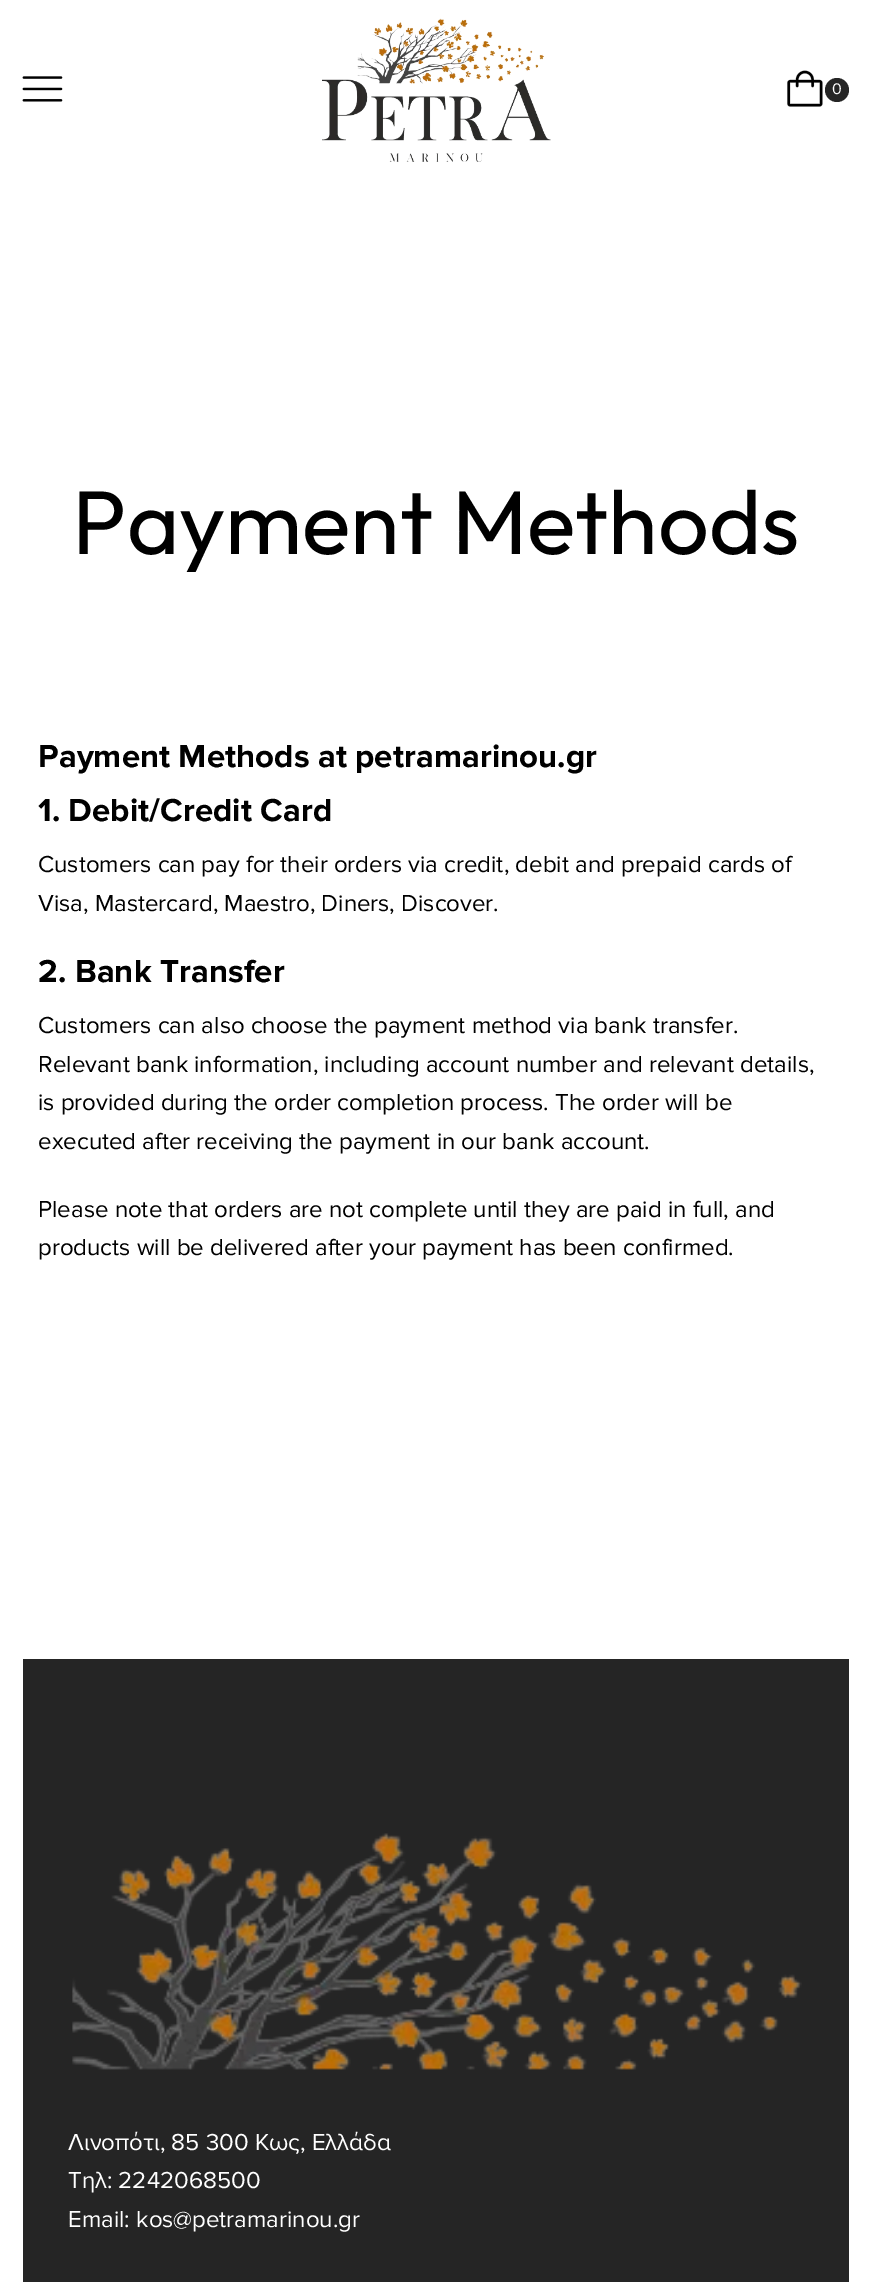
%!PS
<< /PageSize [871 2282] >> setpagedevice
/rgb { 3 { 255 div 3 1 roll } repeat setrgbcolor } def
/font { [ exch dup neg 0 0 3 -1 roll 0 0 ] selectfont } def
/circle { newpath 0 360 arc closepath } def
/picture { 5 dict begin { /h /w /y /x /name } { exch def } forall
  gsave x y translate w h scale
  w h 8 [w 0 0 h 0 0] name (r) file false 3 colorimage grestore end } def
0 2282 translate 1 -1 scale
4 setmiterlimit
255 255 255 rgb
0 0 871 2282 rectfill
(img/1.rgb) 22 76 41 26 picture
(img/2.rgb) 322 18 229 144 picture
(img/3.rgb) 787 70 36 37 picture
37 37 37 rgb
837 90 12 circle fill
23 1659 826 623 rectfill
(img/4.rgb) 72 1833 730 237 picture
/ProximaNova-Regular 16 font
255 255 255 rgb
832 94 moveto (0) show
/Outfit-Regular 90 font
0 0 0 rgb
72 554 moveto (Payment Methods) show
/ProximaNova-Bold 33 font
38 767 moveto (Payment Methods at petramarinou.gr) show
38 821 moveto (1. Debit/Credit Card) show
/ProximaNova-Regular 24 font
38 872 moveto (Customers can pay for their orders via credit, debit and prepaid cards of) show
38 911 moveto (Visa, Mastercard, Maestro, Diners, Discover.) show
/ProximaNova-Bold 33 font
38 982 moveto (2. Bank Transfer) show
/ProximaNova-Regular 24 font
[
  [(Customers can also choose the payment method via bank transfer.) 38 1033]
  [(Relevant bank information, including account number and relevant details,) 38 1072]
  [(is provided during the order completion process. The order will be) 38 1110]
  [(executed after receiving the payment in our bank account.) 38 1149]
  [(Please note that orders are not complete until they are paid in full, and) 38 1217]
  [(products will be delivered after your payment has been confirmed.) 38 1255]
] { aload pop moveto show } forall
255 255 255 rgb
[
  [(Λινοπότι, 85 300 Κως, Ελλάδα) 68 2150]
  [(Τηλ: 2242068500) 68 2188]
  [(Email: kos@petramarinou.gr) 68 2227]
] { aload pop moveto show } forall
showpage
